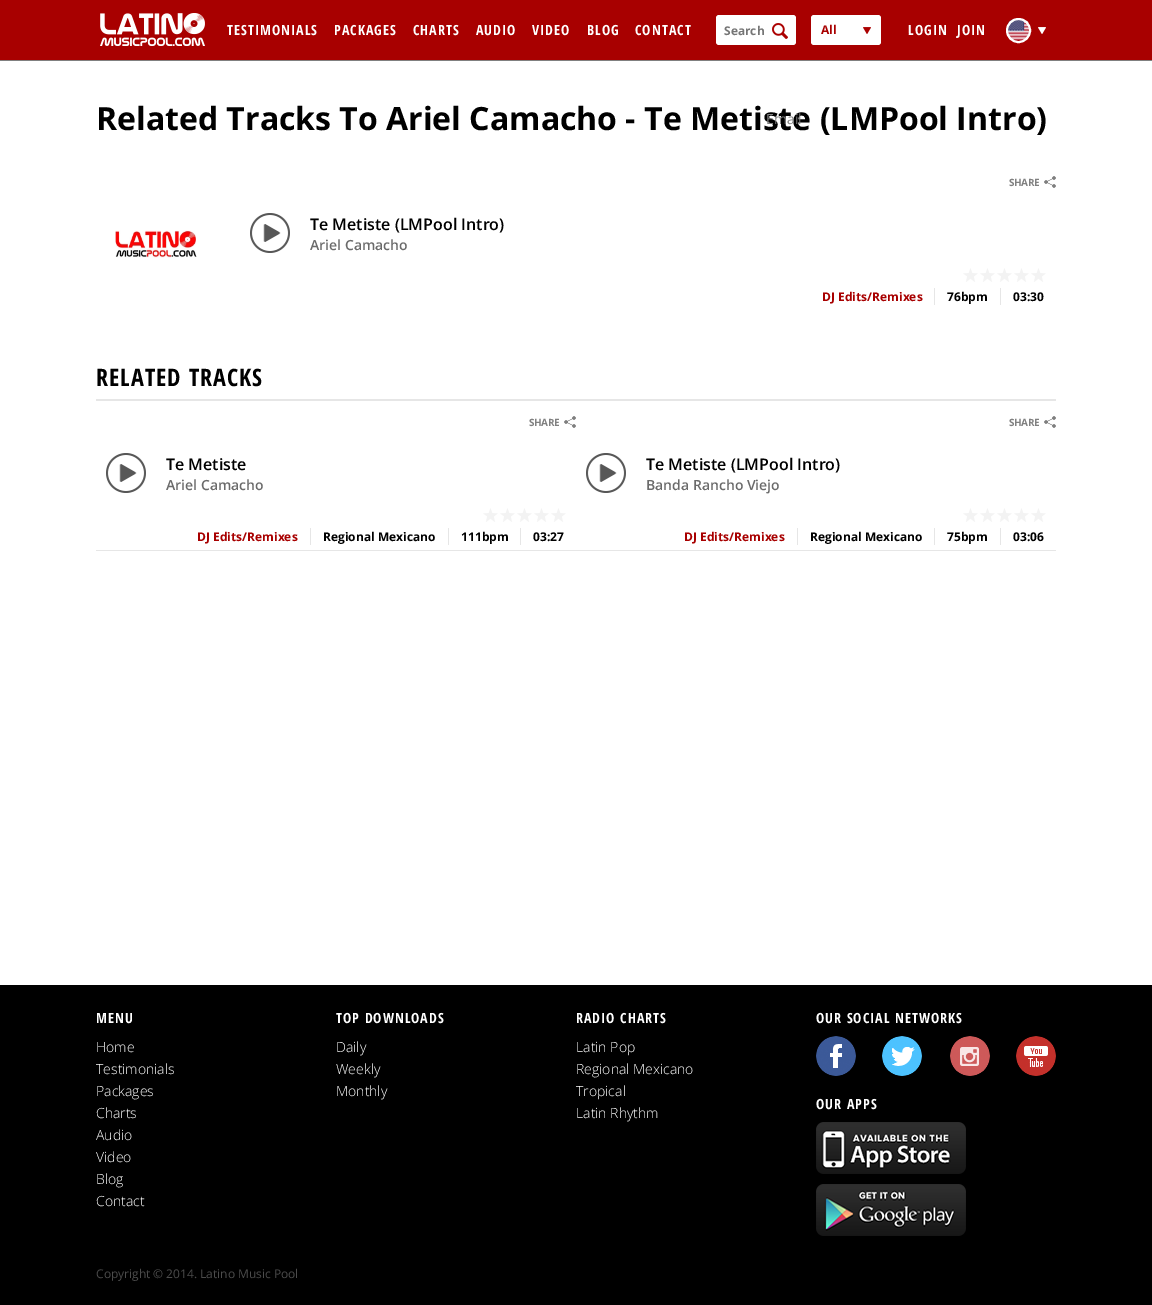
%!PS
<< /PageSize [1152 1305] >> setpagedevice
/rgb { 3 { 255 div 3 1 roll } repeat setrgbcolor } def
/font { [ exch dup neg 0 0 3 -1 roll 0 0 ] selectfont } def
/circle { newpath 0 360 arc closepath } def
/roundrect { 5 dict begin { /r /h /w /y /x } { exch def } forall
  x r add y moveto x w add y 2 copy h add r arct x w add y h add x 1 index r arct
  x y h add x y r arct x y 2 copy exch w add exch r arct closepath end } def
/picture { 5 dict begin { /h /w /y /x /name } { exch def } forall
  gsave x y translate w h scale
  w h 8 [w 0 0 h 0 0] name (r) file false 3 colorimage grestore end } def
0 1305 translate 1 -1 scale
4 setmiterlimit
255 255 255 rgb
0 0 1152 1305 rectfill
128 128 128 rgb
0 60 1152 1 rectfill
168 0 0 rgb
0 0 1152 60 rectfill
(img/1.rgb) 100 13 105 33 picture
255 255 255 rgb
716 15 80 30 3 roundrect fill
(img/2.rgb) 772 23 16 16 picture
811 15 70 30 3 roundrect fill
(img/3.rgb) 863 27 8 7 picture
(img/4.rgb) 1008 19 21 22 picture
2 setlinewidth
1018.5 30.5 11.5 circle stroke
(img/5.rgb) 1038 27 8 7 picture
(img/6.rgb) 115 230 82 28 picture
(img/7.rgb) 1044 176 12 12 picture
(img/8.rgb) 250 213 40 40 picture
(img/9.rgb) 963 268 15 14 picture
(img/9.rgb) 980 268 15 14 picture
(img/9.rgb) 997 268 15 14 picture
(img/9.rgb) 1014 268 15 14 picture
(img/9.rgb) 1031 268 15 14 picture
[
  [934 288 1 17 230 230 230]
  [1000 288 1 17 230 230 230]
  [96 399 960 2 230 230 230]
  [96 550 960 1 230 230 230]
] { aload pop rgb rectfill } forall
(img/7.rgb) 564 416 12 12 picture
(img/8.rgb) 106 453 40 40 picture
(img/9.rgb) 483 508 15 14 picture
(img/9.rgb) 500 508 15 14 picture
(img/9.rgb) 517 508 15 14 picture
(img/9.rgb) 534 508 15 14 picture
(img/9.rgb) 551 508 15 14 picture
[
  [310 528 1 17 230 230 230]
  [448 528 1 17 230 230 230]
  [520 528 1 17 230 230 230]
] { aload pop rgb rectfill } forall
(img/7.rgb) 1044 416 12 12 picture
(img/8.rgb) 586 453 40 40 picture
(img/9.rgb) 963 508 15 14 picture
(img/9.rgb) 980 508 15 14 picture
(img/9.rgb) 997 508 15 14 picture
(img/9.rgb) 1014 508 15 14 picture
(img/9.rgb) 1031 508 15 14 picture
[
  [797 528 1 17 230 230 230]
  [934 528 1 17 230 230 230]
  [1000 528 1 17 230 230 230]
  [0 985 1152 320 0 0 0]
] { aload pop rgb rectfill } forall
(img/10.rgb) 816 1036 40 40 picture
(img/11.rgb) 882 1036 40 40 picture
(img/12.rgb) 950 1036 40 40 picture
(img/13.rgb) 1016 1036 40 40 picture
(img/14.rgb) 816 1122 150 52 picture
(img/15.rgb) 816 1184 150 52 picture
/OpenSansCondensed-Bold 14 font
255 255 255 rgb
227 35 moveto 1 0 (TESTIMONIALS) ashow
334 35 moveto 1 0 (PACKAGES) ashow
413 35 moveto 1 0 (CHARTS) ashow
476 35 moveto 1 0 (AUDIO) ashow
532 35 moveto 1 0 (VIDEO) ashow
587 35 moveto 1 0 (BLOG) ashow
635 35 moveto 1 0 (CONTACT) ashow
/OpenSans-Bold 12 font
117 117 117 rgb
724 35 moveto (Search) show
168 0 0 rgb
821 34 moveto (All) show
/OpenSansCondensed-Bold 14 font
255 255 255 rgb
908 35 moveto 1 0 (LOGIN) ashow
957 35 moveto 1 0 (JOIN) ashow
/OpenSans-Bold 32 font
0 0 0 rgb
96 130 moveto (Related Tracks To Ariel Camacho - Te Metiste \(LMPool Intro\)) show
/OpenSans-Regular 14 font
128 128 128 rgb
766 124 moveto (Email) show
/OpenSans-Bold 10 font
1009 186 moveto -0.5 0 (SHARE) ashow
/OpenSans-SemiBold 16 font
0 0 0 rgb
310 230 moveto (Te Metiste \(LMPool Intro\)) show
/OpenSans-SemiBold 14 font
107 107 107 rgb
310 250 moveto (Ariel Camacho) show
/OpenSans-Bold 12 font
168 0 0 rgb
822 301 moveto (DJ Edits/Remixes) show
0 0 0 rgb
947 301 moveto (76bpm) show
1013 301 moveto (03:30) show
/OpenSansCondensed-Bold 24 font
96 386 moveto 1 0 (RELATED TRACKS) ashow
/OpenSans-Bold 10 font
128 128 128 rgb
529 426 moveto -0.5 0 (SHARE) ashow
/OpenSans-SemiBold 16 font
0 0 0 rgb
166 470 moveto (Te Metiste) show
/OpenSans-SemiBold 14 font
107 107 107 rgb
166 490 moveto (Ariel Camacho) show
/OpenSans-Bold 12 font
168 0 0 rgb
197 541 moveto (DJ Edits/Remixes) show
0 0 0 rgb
[
  [(Regional Mexicano) 323 541]
  [(111bpm) 461 541]
  [(03:27) 533 541]
] { aload pop moveto show } forall
/OpenSans-Bold 10 font
128 128 128 rgb
1009 426 moveto -0.5 0 (SHARE) ashow
/OpenSans-SemiBold 16 font
0 0 0 rgb
646 470 moveto (Te Metiste \(LMPool Intro\)) show
/OpenSans-SemiBold 14 font
107 107 107 rgb
646 490 moveto (Banda Rancho Viejo) show
/OpenSans-Bold 12 font
168 0 0 rgb
684 541 moveto (DJ Edits/Remixes) show
0 0 0 rgb
[
  [(Regional Mexicano) 810 541]
  [(75bpm) 947 541]
  [(03:06) 1013 541]
] { aload pop moveto show } forall
/OpenSansCondensed-Bold 14 font
255 255 255 rgb
96 1023 moveto 1 0 (MENU) ashow
/OpenSans-Light 14 font
[
  [(Home) 96 1052]
  [(Testimonials) 96 1074]
  [(Packages) 96 1096]
  [(Charts) 96 1118]
  [(Audio) 96 1140]
  [(Video) 96 1162]
  [(Blog) 96 1184]
  [(Contact) 96 1206]
] { aload pop moveto show } forall
/OpenSansCondensed-Bold 14 font
336 1023 moveto 1 0 (TOP DOWNLOADS) ashow
/OpenSans-Light 14 font
[
  [(Daily) 336 1052]
  [(Weekly) 336 1074]
  [(Monthly) 336 1096]
] { aload pop moveto show } forall
/OpenSansCondensed-Bold 14 font
576 1023 moveto 1 0 (RADIO CHARTS) ashow
/OpenSans-Light 14 font
[
  [(Latin Pop) 576 1052]
  [(Regional Mexicano) 576 1074]
  [(Tropical) 576 1096]
  [(Latin Rhythm) 576 1118]
] { aload pop moveto show } forall
/OpenSansCondensed-Bold 14 font
816 1023 moveto 1 0 (OUR SOCIAL NETWORKS) ashow
816 1109 moveto 1 0 (OUR APPS) ashow
/OpenSans-Regular 12 font
76 76 76 rgb
96 1278 moveto (Copyright © 2014. Latino Music Pool) show
showpage
